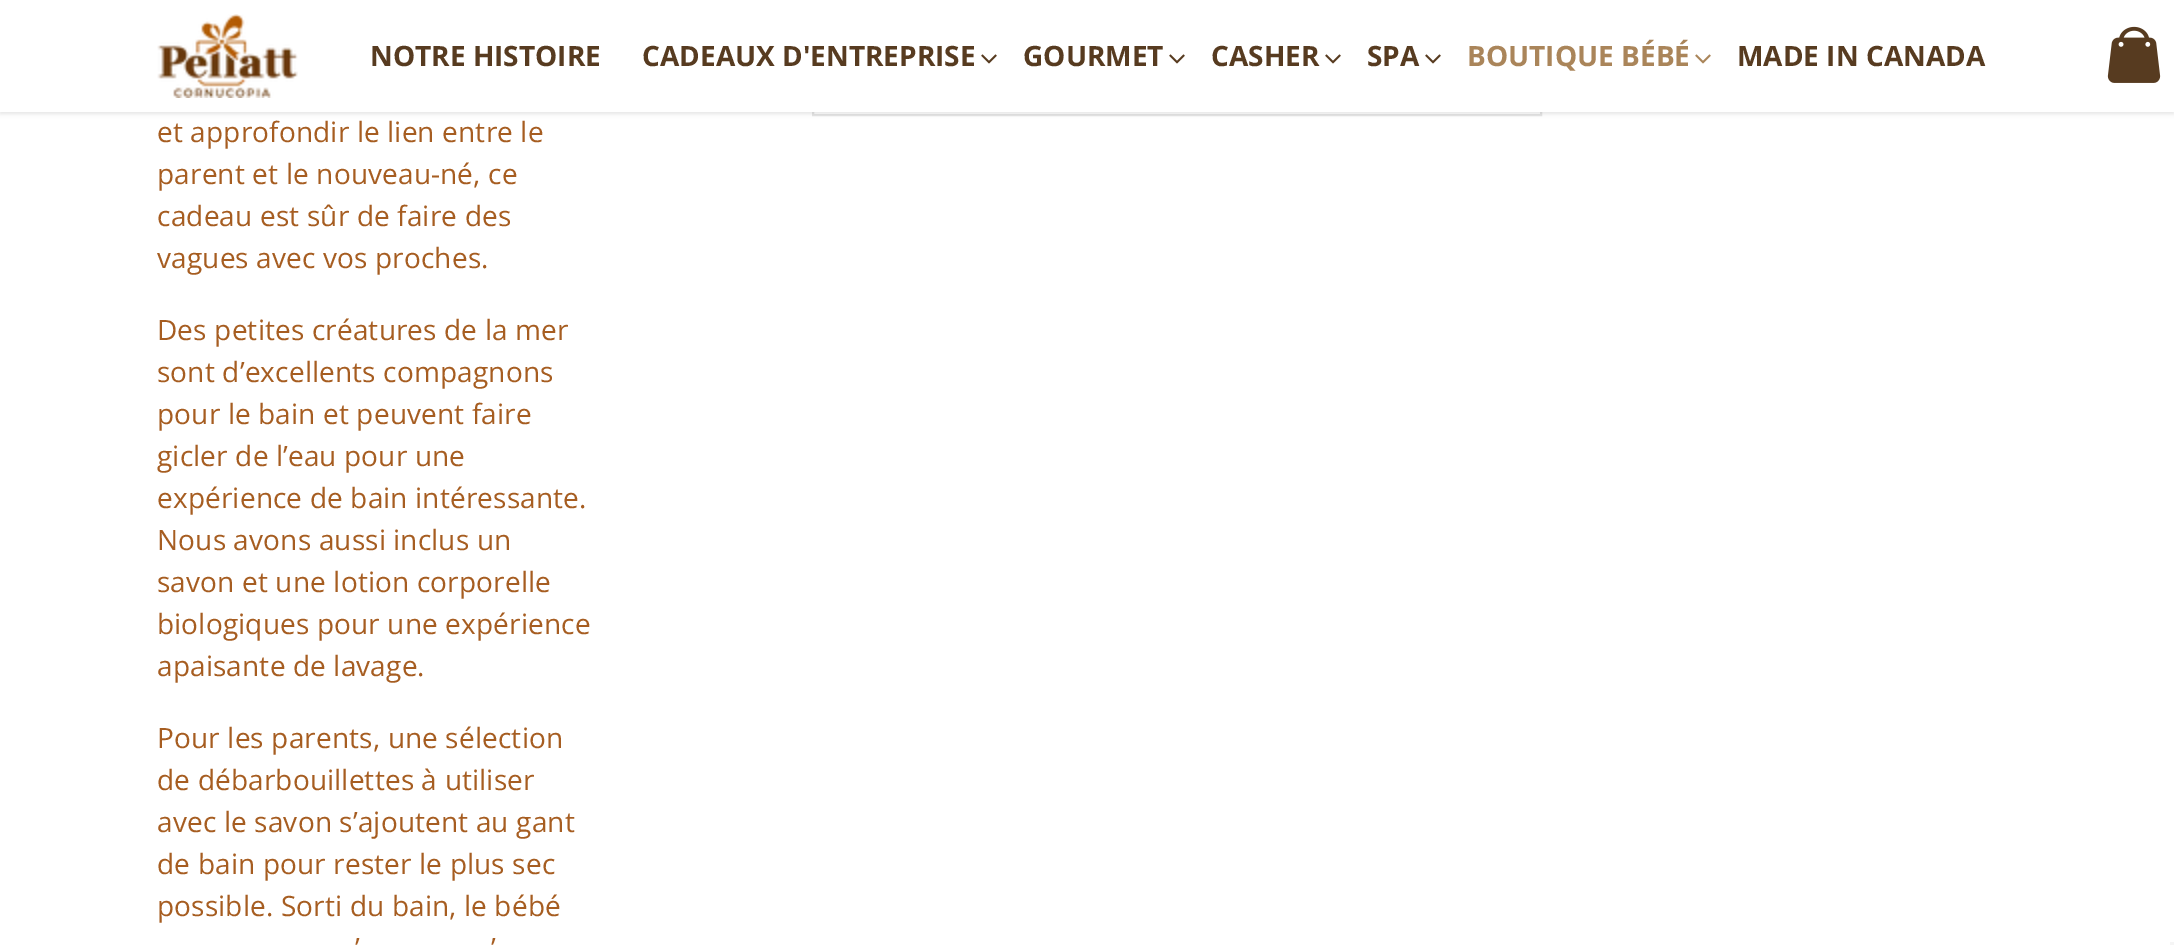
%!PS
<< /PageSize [2174 945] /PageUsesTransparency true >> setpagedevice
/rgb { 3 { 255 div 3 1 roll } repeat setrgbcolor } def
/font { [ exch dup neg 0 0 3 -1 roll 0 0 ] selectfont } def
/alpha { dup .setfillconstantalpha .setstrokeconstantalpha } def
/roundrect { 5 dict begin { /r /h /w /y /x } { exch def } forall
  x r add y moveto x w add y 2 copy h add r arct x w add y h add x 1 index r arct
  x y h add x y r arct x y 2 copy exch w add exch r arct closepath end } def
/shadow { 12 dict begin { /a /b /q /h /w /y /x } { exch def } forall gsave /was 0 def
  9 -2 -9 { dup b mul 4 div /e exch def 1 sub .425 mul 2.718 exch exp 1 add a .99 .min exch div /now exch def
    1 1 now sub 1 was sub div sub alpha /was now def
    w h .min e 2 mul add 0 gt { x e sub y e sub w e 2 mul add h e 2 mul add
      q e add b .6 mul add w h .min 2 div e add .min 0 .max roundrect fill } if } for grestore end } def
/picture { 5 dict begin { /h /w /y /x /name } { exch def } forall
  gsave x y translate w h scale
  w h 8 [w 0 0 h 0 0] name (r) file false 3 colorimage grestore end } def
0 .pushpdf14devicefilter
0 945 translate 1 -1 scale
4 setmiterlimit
255 255 255 rgb
0 0 2174 945 rectfill
230 230 230 rgb
2 setlinewidth
813 -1 728 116 rectstroke
0 0 0 rgb
0 2 2174 112 0 2 0.1 shadow
255 255 255 rgb
0 0 2174 112 rectfill
(img/1.rgb) 157 14 141 84 picture
(img/2.rgb) 981 54 16 10 picture
(img/2.rgb) 1169 54 16 10 picture
(img/2.rgb) 1325 54 16 10 picture
(img/2.rgb) 1425 54 16 10 picture
(img/3.rgb) 1695 54 16 10 picture
(img/4.rgb) 2107 26 54 57 picture
245 245 245 rgb
2170 942 4 3 rectfill
/OpenSans-Bold 28 font
87 59 32 rgb
[
  [(NOTRE HISTOIRE) 370 66]
  [(CADEAUX D'ENTREPRISE) 642 66]
  [(GOURMET) 1023 66]
  [(CASHER) 1211 66]
  [(SPA) 1367 66]
] { aload pop moveto show } forall
170 133 90 rgb
1467 66 moveto (BOUTIQUE BÉBÉ) show
87 59 32 rgb
1737 66 moveto (MADE IN CANADA) show
/OpenSans-Regular 28 font
166 93 33 rgb
157 142 moveto 0.15 0 (et approfondir le lien entre le) ashow
157 184 moveto 0.15 0 (parent et le nouveau-né, ce) ashow
157 226 moveto 0.15 0 (cadeau est sûr de faire des) ashow
157 268 moveto 0.15 0 (vagues avec vos proches.) ashow
157 340 moveto 0.15 0 (Des petites créatures de la mer) ashow
157 382 moveto 0.15 0 (sont d’excellents compagnons) ashow
157 424 moveto 0.15 0 (pour le bain et peuvent faire) ashow
157 466 moveto 0.15 0 (gicler de l’eau pour une) ashow
157 508 moveto 0.15 0 (expérience de bain intéressante.) ashow
157 550 moveto 0.15 0 (Nous avons aussi inclus un) ashow
157 592 moveto 0.15 0 (savon et une lotion corporelle) ashow
157 634 moveto 0.15 0 (biologiques pour une expérience) ashow
157 676 moveto 0.15 0 (apaisante de lavage.) ashow
157 748 moveto 0.15 0 (Pour les parents, une sélection) ashow
157 790 moveto 0.15 0 (de débarbouillettes à utiliser) ashow
157 832 moveto 0.15 0 (avec le savon s’ajoutent au gant) ashow
157 874 moveto 0.15 0 (de bain pour rester le plus sec) ashow
157 916 moveto 0.15 0 (possible. Sorti du bain, le bébé) ashow
355 958 moveto 0.15 0 (’) ashow
491 958 moveto 0.15 0 (’) ashow
.poppdf14devicefilter showpage
